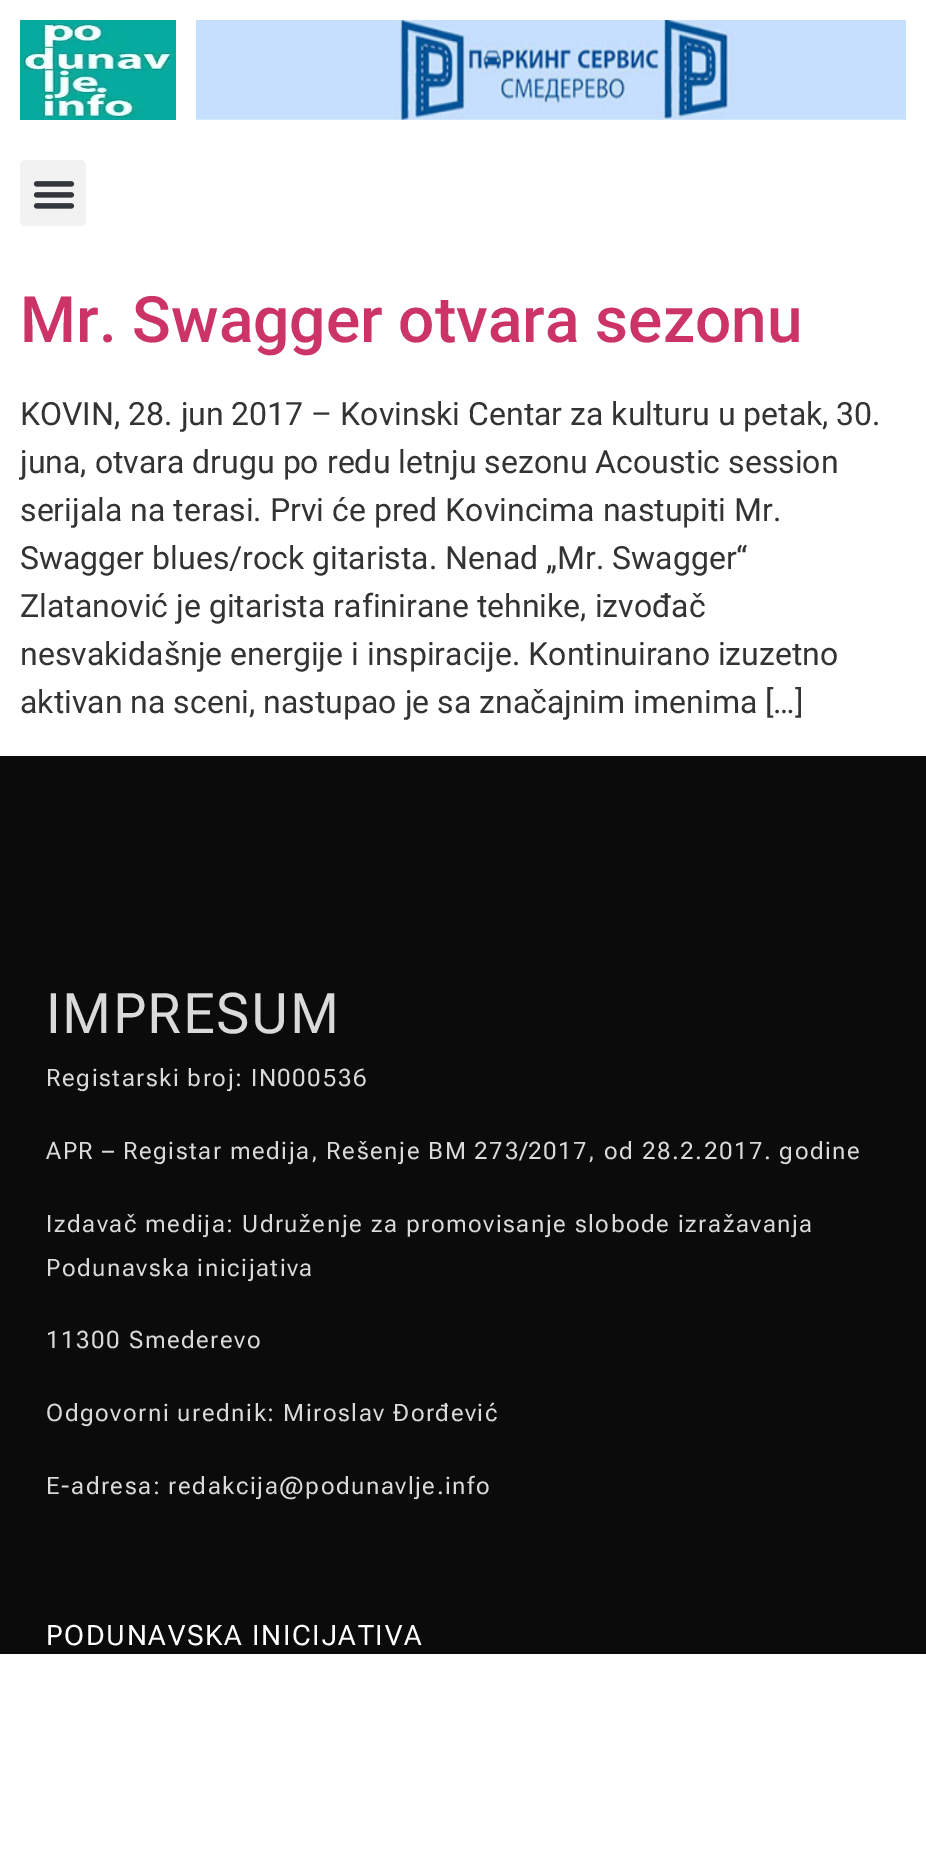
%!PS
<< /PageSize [926 1865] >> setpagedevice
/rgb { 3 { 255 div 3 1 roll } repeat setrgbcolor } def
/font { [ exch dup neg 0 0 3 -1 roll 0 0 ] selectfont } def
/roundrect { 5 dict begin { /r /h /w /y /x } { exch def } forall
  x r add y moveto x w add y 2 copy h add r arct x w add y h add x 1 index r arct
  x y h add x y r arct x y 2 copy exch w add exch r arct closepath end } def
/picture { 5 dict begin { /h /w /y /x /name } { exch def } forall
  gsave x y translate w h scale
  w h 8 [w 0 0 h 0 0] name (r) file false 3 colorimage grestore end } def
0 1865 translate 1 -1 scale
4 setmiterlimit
255 255 255 rgb
0 0 926 1865 rectfill
(img/1.rgb) 20 20 156 100 picture
(img/2.rgb) 196 20 711 100 picture
242 242 242 rgb
20 160 66 66 6 roundrect fill
(img/3.rgb) 33 181 42 28 picture
11 11 11 rgb
0 756 926 898 rectfill
/Roboto-Medium 64 font
204 51 102 rgb
20 342 moveto (Mr. Swagger otvara sezonu) show
/Roboto-Regular 32 font
51 51 51 rgb
[
  [(KOVIN, 28. jun 2017 – Kovinski Centar za kulturu u petak, 30.) 20 425]
  [(juna, otvara drugu po redu letnju sezonu Acoustic session) 20 473]
  [(serijala na terasi. Prvi će pred Kovincima nastupiti Mr.) 20 521]
  [(Swagger blues/rock gitarista. Nenad „Mr. Swagger“) 20 569]
  [(Zlatanović je gitarista rafinirane tehnike, izvođač) 20 617]
  [(nesvakidašnje energije i inspiracije. Kontinuirano izuzetno) 20 665]
  [(aktivan na sceni, nastupao je sa značajnim imenima […]) 20 713]
] { aload pop moveto show } forall
/RobotoFlex-Regular 56 font
218 218 218 rgb
46 1033 moveto 1.52 0 (IMPRESUM) ashow
/RobotoFlex-Regular 24 font
46 1086 moveto 1.52 0 (Registarski broj: IN000536) ashow
46 1159 moveto 1.52 0 (APR – Registar medija, Rešenje BM 273/2017, od 28.2.2017. godine) ashow
46 1232 moveto 1.52 0 (Izdavač medija: Udruženje za promovisanje slobode izražavanja) ashow
46 1276 moveto 1.52 0 (Podunavska inicijativa) ashow
46 1348 moveto 1.52 0 (11300 Smederevo) ashow
46 1421 moveto 1.52 0 (Odgovorni urednik: Miroslav Đorđević) ashow
46 1494 moveto 1.52 0 (E-adresa: redakcija@podunavlje.info) ashow
/RobotoFlex-Regular 28 font
255 255 255 rgb
46 1645 moveto 1.75 0 (PODUNAVSKA INICIJATIVA) ashow
showpage
